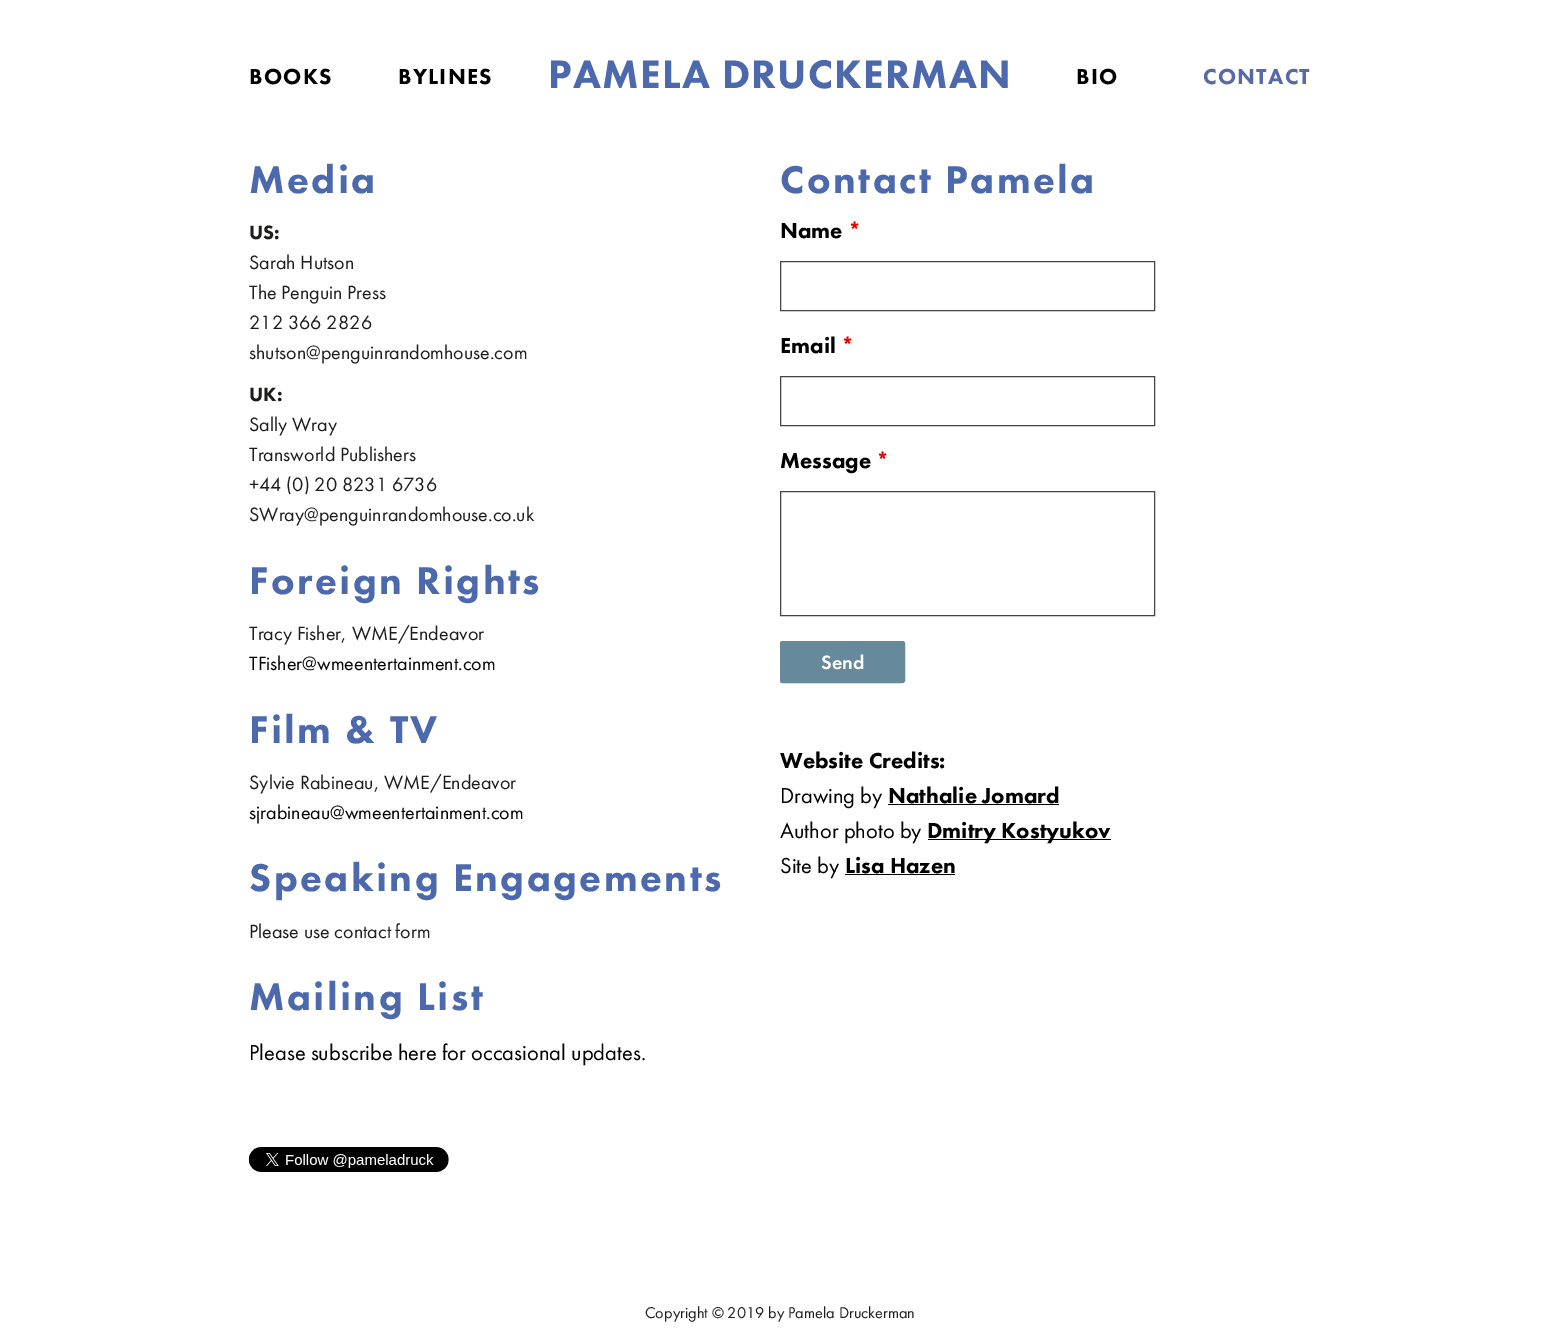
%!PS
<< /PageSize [1560 1344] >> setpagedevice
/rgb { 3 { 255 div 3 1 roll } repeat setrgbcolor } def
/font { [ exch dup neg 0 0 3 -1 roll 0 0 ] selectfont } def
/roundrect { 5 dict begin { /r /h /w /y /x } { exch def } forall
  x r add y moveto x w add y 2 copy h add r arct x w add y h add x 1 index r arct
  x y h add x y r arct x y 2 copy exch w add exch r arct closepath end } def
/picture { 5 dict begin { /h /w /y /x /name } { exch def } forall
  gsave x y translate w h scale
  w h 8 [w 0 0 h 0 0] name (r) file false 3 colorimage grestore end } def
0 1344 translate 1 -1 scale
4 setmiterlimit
255 255 255 rgb
0 0 1560 1344 rectfill
(img/1.rgb) 248 1147 201 25 picture
68 68 68 rgb
780.5 261.5 374 49 rectstroke
780.5 376.5 374 49 rectstroke
780.5 491.5 374 124 rectstroke
102 137 155 rgb
780.5 641.5 124 41 2 roundrect gsave fill grestore
stroke
[
  [888 804 171 1 0 0 0]
  [928 839 183 1 0 0 0]
  [845 874 110 1 0 0 0]
] { aload pop rgb rectfill } forall
/FuturaPT-Black 41.25 font
76 105 173 rgb
548 88 moveto 1.25 0 (PAMELA DRUCKERMAN) ashow
/FuturaPT-Black 22.5 font
0 0 0 rgb
249 84 moveto 1.25 0 (BOOKS) ashow
398 84 moveto 1.25 0 (BYLINES) ashow
1076 84 moveto 1.25 0 (BIO) ashow
86 105 169 rgb
1203 84 moveto 1.25 0 (CONTACT) ashow
/FuturaPT-Black 40 font
76 105 173 rgb
249 193 moveto 2.5 0 (Media) ashow
/FuturaPT-Black 20 font
29 29 27 rgb
249 239 moveto (US:) show
/FuturaPT-Regular 20 font
[
  [(Sarah Hutson) 249 269]
  [(The Penguin Press) 249 299]
  [(212 366 2826) 249 329]
  [(shutson@penguinrandomhouse.com) 249 359]
] { aload pop moveto show } forall
/FuturaPT-Black 20 font
249 401 moveto (UK:) show
/FuturaPT-Regular 20 font
[
  [(Sally Wray) 249 431]
  [(Transworld Publishers) 249 461]
  [(+44 \(0\) 20 8231 6736) 249 491]
  [(SWray@penguinrandomhouse.co.uk) 249 521]
] { aload pop moveto show } forall
/FuturaPT-Black 40 font
76 105 173 rgb
249 594 moveto 2.5 0 (Foreign Rights) ashow
/FuturaPT-Regular 20 font
29 29 27 rgb
249 640 moveto (Tracy Fisher, WME/Endeavor) show
0 0 0 rgb
249 670 moveto (TFisher@wmeentertainment.com) show
/FuturaPT-Black 40 font
76 105 173 rgb
249 743 moveto 2.5 0 (Film & TV) ashow
/FuturaPT-Regular 20 font
29 29 27 rgb
249 789 moveto (Sylvie Rabineau, WME/Endeavor) show
0 0 0 rgb
249 819 moveto (sjrabineau@wmeentertainment.com) show
/FuturaPT-Black 40 font
76 105 173 rgb
249 891 moveto 2.5 0 (Speaking Engagements) ashow
/FuturaPT-Regular 20 font
29 29 27 rgb
249 938 moveto (Please use contact form) show
/FuturaPT-Black 40 font
76 105 173 rgb
249 1010 moveto 2.5 0 (Mailing List) ashow
/FuturaPT-Regular 22.5 font
0 0 0 rgb
249 1060 moveto (Please subscribe here for occasional updates.) show
/FuturaPT-Black 40 font
76 105 173 rgb
780 193 moveto 2.5 0 (Contact Pamela) ashow
/FuturaPT-Black 22.5 font
0 0 0 rgb
780 238 moveto (Name) show
232 0 0 rgb
848 238 moveto (*) show
0 0 0 rgb
780 353 moveto (Email) show
232 0 0 rgb
841 353 moveto (*) show
0 0 0 rgb
780 468 moveto (Message) show
232 0 0 rgb
876 468 moveto (*) show
/FuturaPT-Medium 20 font
255 255 255 rgb
821 669 moveto (Send) show
/FuturaPT-Black 22.5 font
0 0 0 rgb
780 768 moveto (Website Credits:) show
/FuturaPT-Regular 22.5 font
780 803 moveto (Drawing by) show
/FuturaPT-Black 22.5 font
888 803 moveto (Nathalie Jomard) show
/FuturaPT-Regular 22.5 font
780 838 moveto (Author photo by) show
/FuturaPT-Black 22.5 font
927 838 moveto (Dmitry Kostyukov) show
/FuturaPT-Regular 22.5 font
780 873 moveto (Site by) show
/FuturaPT-Black 22.5 font
845 873 moveto (Lisa Hazen) show
/FuturaPT-Regular 16.25 font
29 29 27 rgb
645 1318 moveto (Copyright © 2019 by Pamela Druckerman) show
showpage
